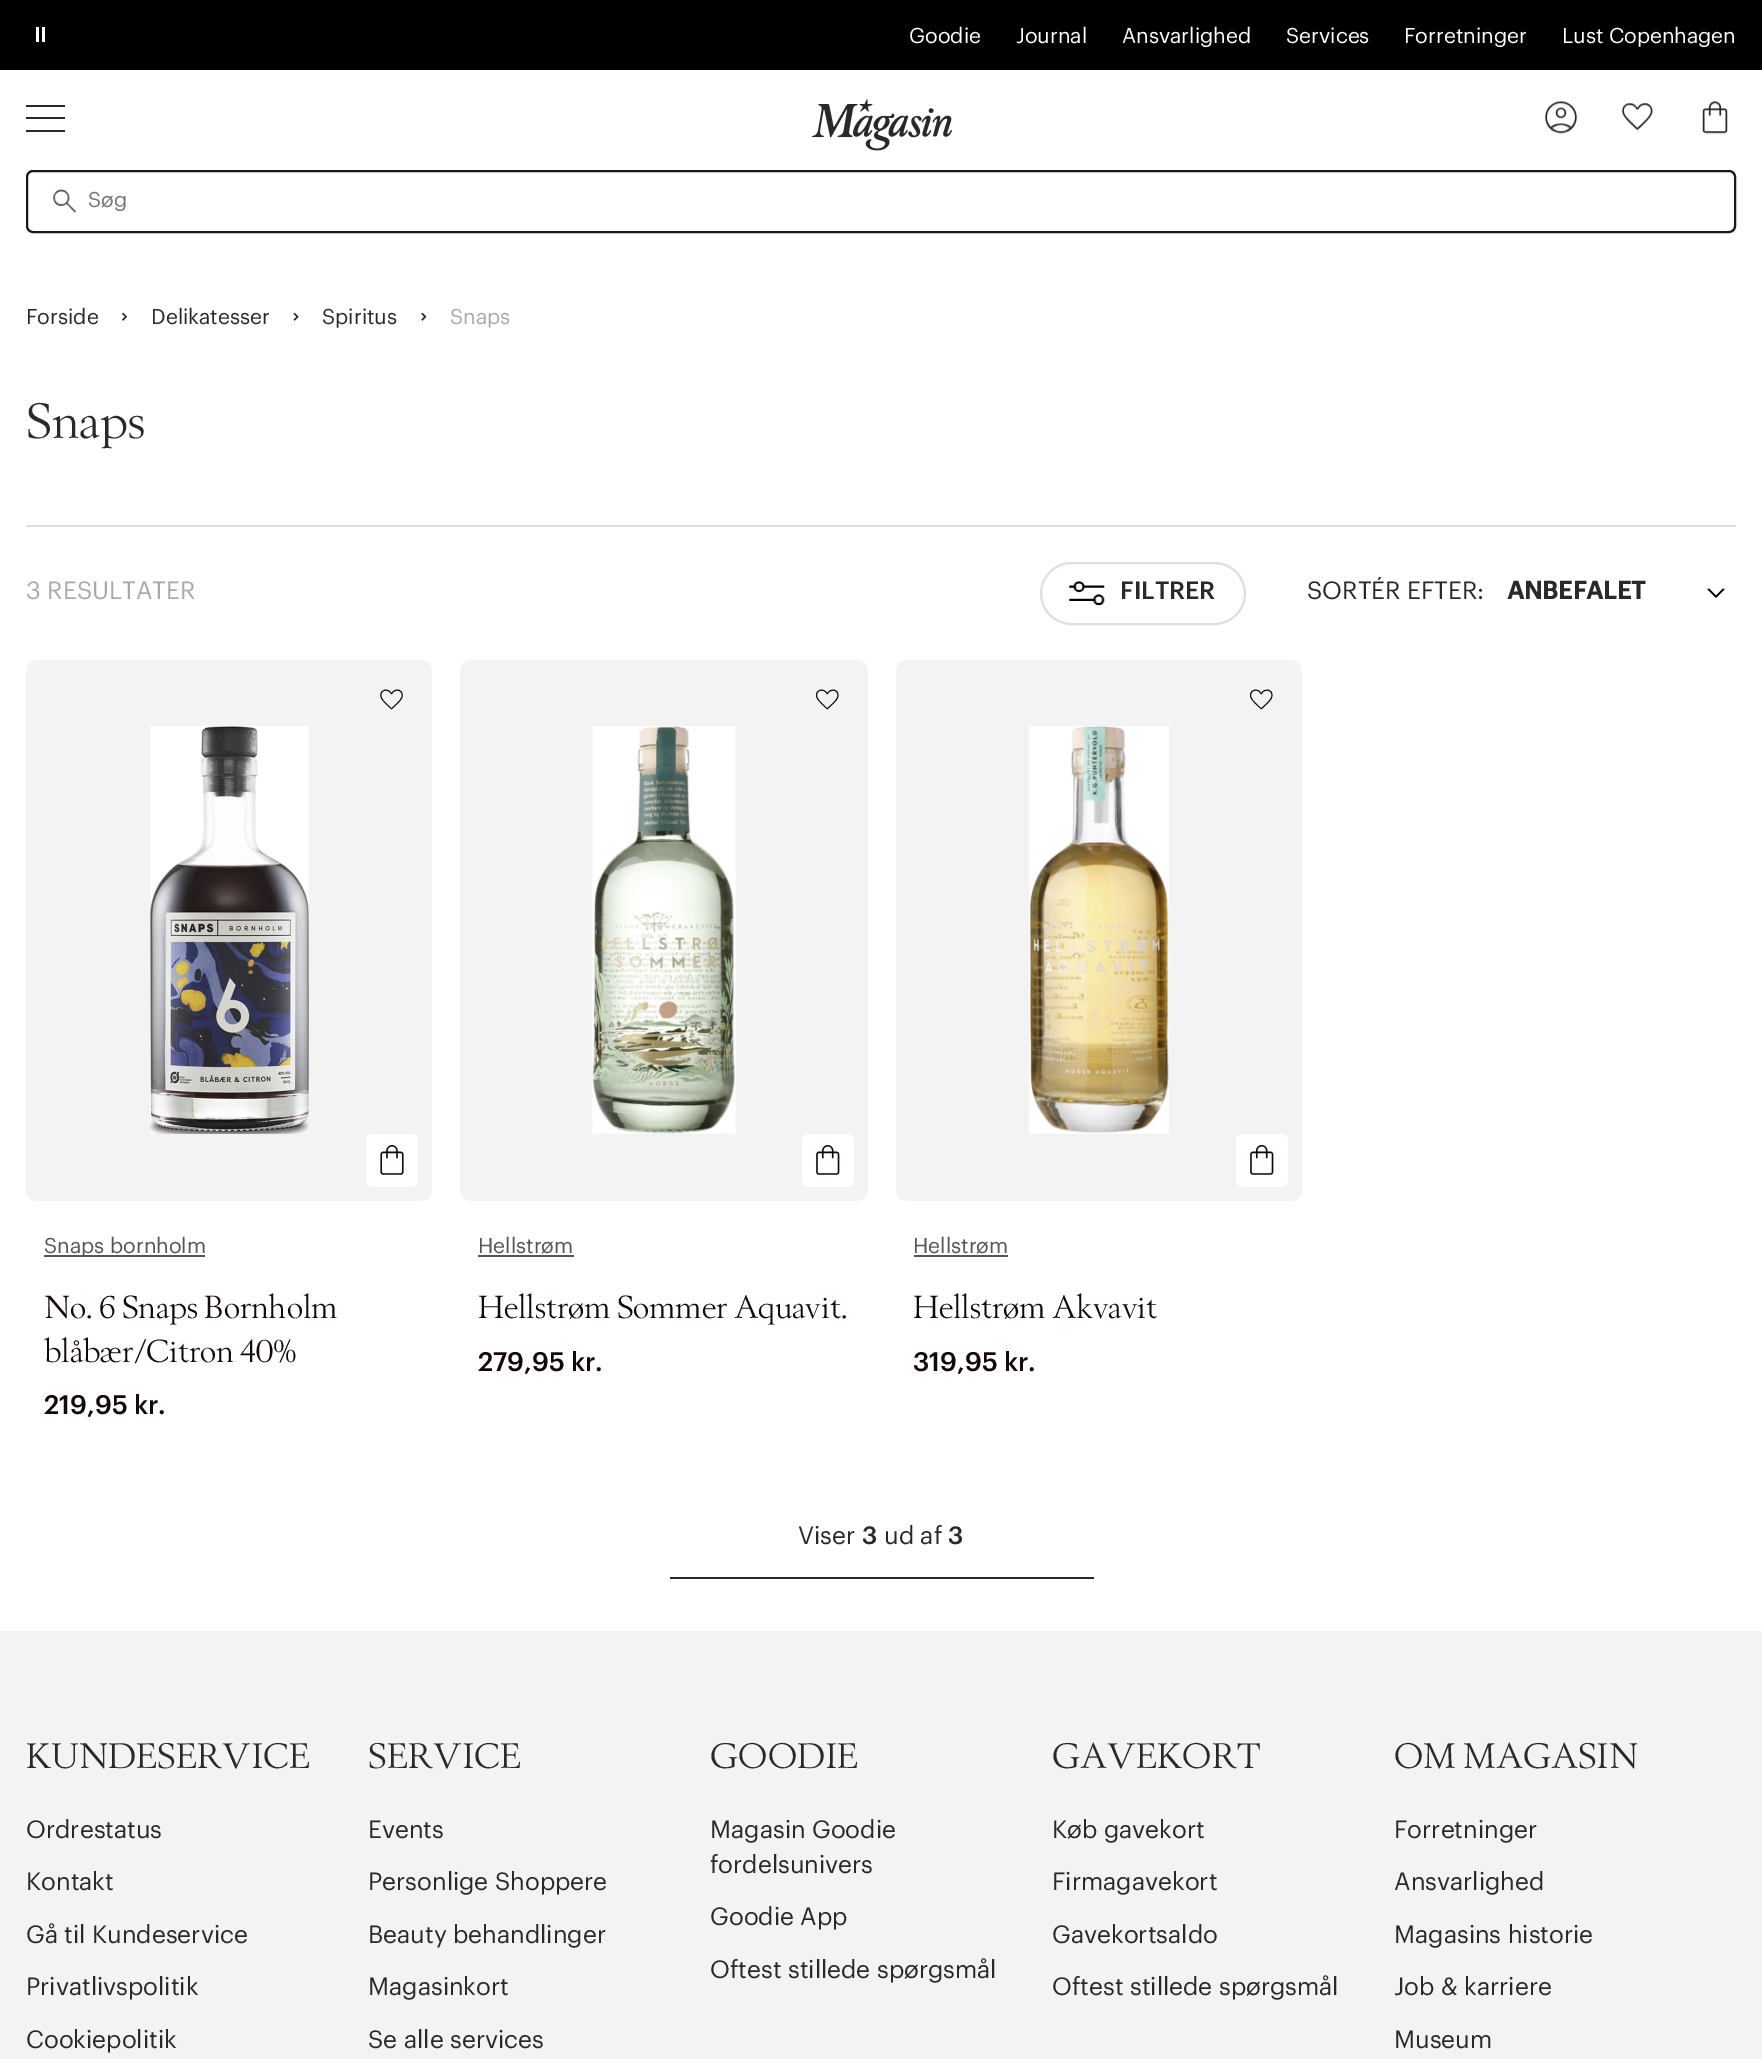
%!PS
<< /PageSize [1762 2059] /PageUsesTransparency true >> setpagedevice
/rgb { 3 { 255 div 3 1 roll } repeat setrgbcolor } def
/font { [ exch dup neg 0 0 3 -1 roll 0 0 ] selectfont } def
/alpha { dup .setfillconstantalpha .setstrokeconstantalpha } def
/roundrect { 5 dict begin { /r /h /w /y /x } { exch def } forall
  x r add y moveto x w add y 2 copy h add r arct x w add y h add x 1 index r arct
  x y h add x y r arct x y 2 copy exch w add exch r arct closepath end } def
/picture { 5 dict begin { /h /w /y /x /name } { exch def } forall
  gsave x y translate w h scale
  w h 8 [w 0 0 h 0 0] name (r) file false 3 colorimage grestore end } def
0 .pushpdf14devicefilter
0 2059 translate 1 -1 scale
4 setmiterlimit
255 255 255 rgb
0 0 1762 2059 rectfill
[
  [0 0 1762 70 0 0 0]
  [36 27 3 15 255 255 255]
  [42 27 3 15 255 255 255]
  [26 105 39 2 41 41 41]
  [26 117 39 2 41 41 41]
  [26 130 39 2 41 41 41]
] { aload pop rgb rectfill } forall
(img/1.rgb) 812 99 140 52 picture
(img/2.rgb) 1545 101 32 33 picture
(img/3.rgb) 1622 103 31 28 picture
(img/4.rgb) 1702 101 26 33 picture
243 243 243 rgb
26 170 1710 63 rectfill
255 255 255 rgb
26 170 1710 63 7 roundrect fill
0.9 alpha
0 0 0 rgb
2 setlinewidth
27 171 1708 61 6 roundrect stroke
1 alpha
(img/5.rgb) 53 189 24 24 picture
(img/6.rgb) 122 312 6 9 picture
(img/7.rgb) 293 312 6 9 picture
(img/8.rgb) 421 312 6 9 picture
223 223 223 rgb
26 525 1710 2 rectfill
1041 563 204 61 30.5 roundrect stroke
(img/9.rgb) 1069 581 36 25 picture
0 0 0 rgb
1716 595.5 moveto 1723 588.5 lineto 1724.5 589.5 lineto 1716 598 lineto 1707.5 589.5 lineto 1709 588.5 lineto closepath eofill
243 243 243 rgb
26 660 406 541 11 roundrect fill
(img/10.rgb) 380 689 23 21 picture
(img/11.rgb) 150 726 159 408 picture
255 255 255 rgb
366 1134 52 53 7 roundrect fill
(img/12.rgb) 380 1144 24 31 picture
85 85 85 rgb
44 1255 161 2 rectfill
243 243 243 rgb
460 660 408 541 11 roundrect fill
(img/13.rgb) 816 689 23 21 picture
(img/14.rgb) 592 726 144 408 picture
255 255 255 rgb
802 1134 52 53 7 roundrect fill
(img/15.rgb) 816 1145 24 30 picture
85 85 85 rgb
478 1255 96 2 rectfill
243 243 243 rgb
896 660 406 541 11 roundrect fill
(img/16.rgb) 1250 689 23 21 picture
(img/17.rgb) 1029 726 140 408 picture
255 255 255 rgb
1236 1134 52 53 7 roundrect fill
(img/18.rgb) 1250 1145 24 30 picture
[
  [914 1255 94 2 85 85 85]
  [670 1577 424 2 41 41 41]
  [0 1631 1762 428 243 243 243]
] { aload pop rgb rectfill } forall
/Graphik-Regular 21 font
255 255 255 rgb
[
  [(Goodie) 909 43]
  [(Journal) 1016 43]
  [(Ansvarlighed) 1122 43]
  [(Services) 1286 43]
  [(Forretninger) 1404 43]
  [(Lust Copenhagen) 1562 43]
] { aload pop moveto show } forall
117 117 117 rgb
88 207 moveto (Søg) show
41 41 41 rgb
[
  [(Forside) 26 324]
  [(Delikatesser) 151 324]
  [(Spiritus) 322 324]
] { aload pop moveto show } forall
169 169 169 rgb
450 324 moveto (Snaps) show
/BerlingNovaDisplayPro-Regular 49 font
41 41 41 rgb
26 438 moveto (Snaps) show
/Graphik-Regular 24.5 font
169 169 169 rgb
26 599 moveto (3 RESULTATER) show
/Graphik-Medium 24.5 font
41 41 41 rgb
1120 599 moveto (FILTRER) show
/Graphik-Regular 24.5 font
1307 599 moveto (SORTÉR EFTER:) show
/Graphik-Bold 24.5 font
1507 599 moveto (ANBEFALET) show
/Graphik-Regular 21 font
85 85 85 rgb
44 1253 moveto (Snaps bornholm) show
/BerlingNovaDisplayPro-Regular 31.5 font
20 8 12 rgb
44 1318 moveto (No. 6 Snaps Bornholm) show
44 1362 moveto (blåbær/Citron 40%) show
/Graphik-Medium 26.25 font
44 1414 moveto (219,95 kr.) show
/Graphik-Regular 21 font
85 85 85 rgb
478 1253 moveto (Hellstrøm) show
/BerlingNovaDisplayPro-Regular 31.5 font
20 8 12 rgb
478 1318 moveto (Hellstrøm Sommer Aquavit.) show
/Graphik-Medium 26.25 font
478 1371 moveto (279,95 kr.) show
/Graphik-Regular 21 font
85 85 85 rgb
913 1253 moveto (Hellstrøm) show
gsave
914 1288 371 44 rectclip
/BerlingNovaDisplayPro-Regular 31.5 font
20 8 12 rgb
913 1318 moveto (Hellstrøm Akvavit) show
grestore
/Graphik-Medium 26.25 font
20 8 12 rgb
913 1371 moveto (319,95 kr.) show
/Graphik-Regular 24.5 font
41 41 41 rgb
798 1544 moveto (Viser) show
/Graphik-Medium 24.5 font
862 1544 moveto (3) show
/Graphik-Regular 24.5 font
884 1544 moveto (ud af) show
/Graphik-Medium 24.5 font
948 1544 moveto (3) show
/BerlingNovaDisplayPro-Regular 35 font
26 1768 moveto (KUNDESERVICE) show
/Graphik-Regular 24.5 font
[
  [(Ordrestatus) 26 1838]
  [(Kontakt) 26 1890]
  [(Gå til Kundeservice) 26 1943]
  [(Privatlivspolitik) 26 1995]
  [(Cookiepolitik) 26 2048]
] { aload pop moveto show } forall
/BerlingNovaDisplayPro-Regular 35 font
368 1768 moveto (SERVICE) show
/Graphik-Regular 24.5 font
[
  [(Events) 368 1838]
  [(Personlige Shoppere) 368 1890]
  [(Beauty behandlinger) 368 1943]
  [(Magasinkort) 368 1995]
  [(Se alle services) 368 2048]
] { aload pop moveto show } forall
/BerlingNovaDisplayPro-Regular 35 font
710 1768 moveto (GOODIE) show
/Graphik-Regular 24.5 font
[
  [(Magasin Goodie) 710 1838]
  [(fordelsunivers) 710 1873]
  [(Goodie App) 710 1925]
  [(Oftest stillede spørgsmål) 710 1978]
] { aload pop moveto show } forall
/BerlingNovaDisplayPro-Regular 35 font
1052 1768 moveto (GAVEKORT) show
/Graphik-Regular 24.5 font
[
  [(Køb gavekort) 1052 1838]
  [(Firmagavekort) 1052 1890]
  [(Gavekortsaldo) 1052 1943]
  [(Oftest stillede spørgsmål) 1052 1995]
] { aload pop moveto show } forall
/BerlingNovaDisplayPro-Regular 35 font
1394 1768 moveto (OM MAGASIN) show
/Graphik-Regular 24.5 font
[
  [(Forretninger) 1394 1838]
  [(Ansvarlighed) 1394 1890]
  [(Magasins historie) 1394 1943]
  [(Job & karriere) 1394 1995]
  [(Museum) 1394 2048]
] { aload pop moveto show } forall
.poppdf14devicefilter showpage
